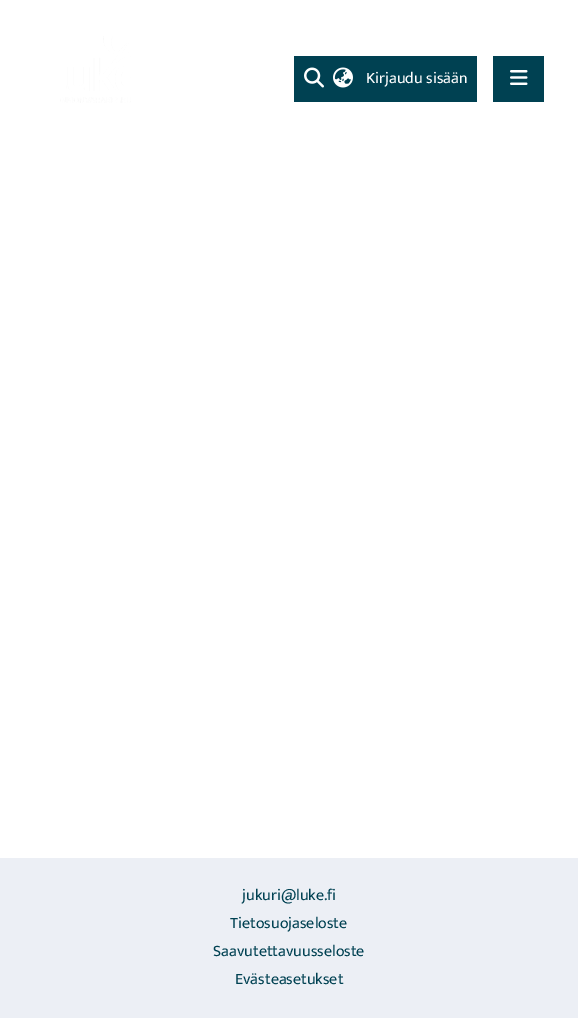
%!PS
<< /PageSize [578 1018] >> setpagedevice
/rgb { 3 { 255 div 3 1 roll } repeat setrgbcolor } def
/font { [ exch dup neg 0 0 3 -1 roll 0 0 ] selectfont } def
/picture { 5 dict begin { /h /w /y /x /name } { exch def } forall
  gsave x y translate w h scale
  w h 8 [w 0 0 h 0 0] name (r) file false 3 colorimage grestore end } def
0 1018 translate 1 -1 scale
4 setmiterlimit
255 255 255 rgb
0 0 578 1018 rectfill
(img/1.rgb) 60 36 71 67 picture
0 65 82 rgb
294 56 183 46 rectfill
(img/2.rgb) 304 67 20 21 picture
(img/3.rgb) 333 67 20 21 picture
493 56 51 46 rectfill
(img/4.rgb) 510 70 18 15 picture
236 239 245 rgb
0 858 578 160 rectfill
/Mukta-Regular 16 font
255 255 255 rgb
366 83 moveto (Kirjaudu sisään) show
0 65 82 rgb
[
  [(jukuri@luke.fi) 242 900]
  [(Tietosuojaseloste) 230 928]
  [(Saavutettavuusseloste) 213 956]
  [(Evästeasetukset) 235 984]
] { aload pop moveto show } forall
showpage
